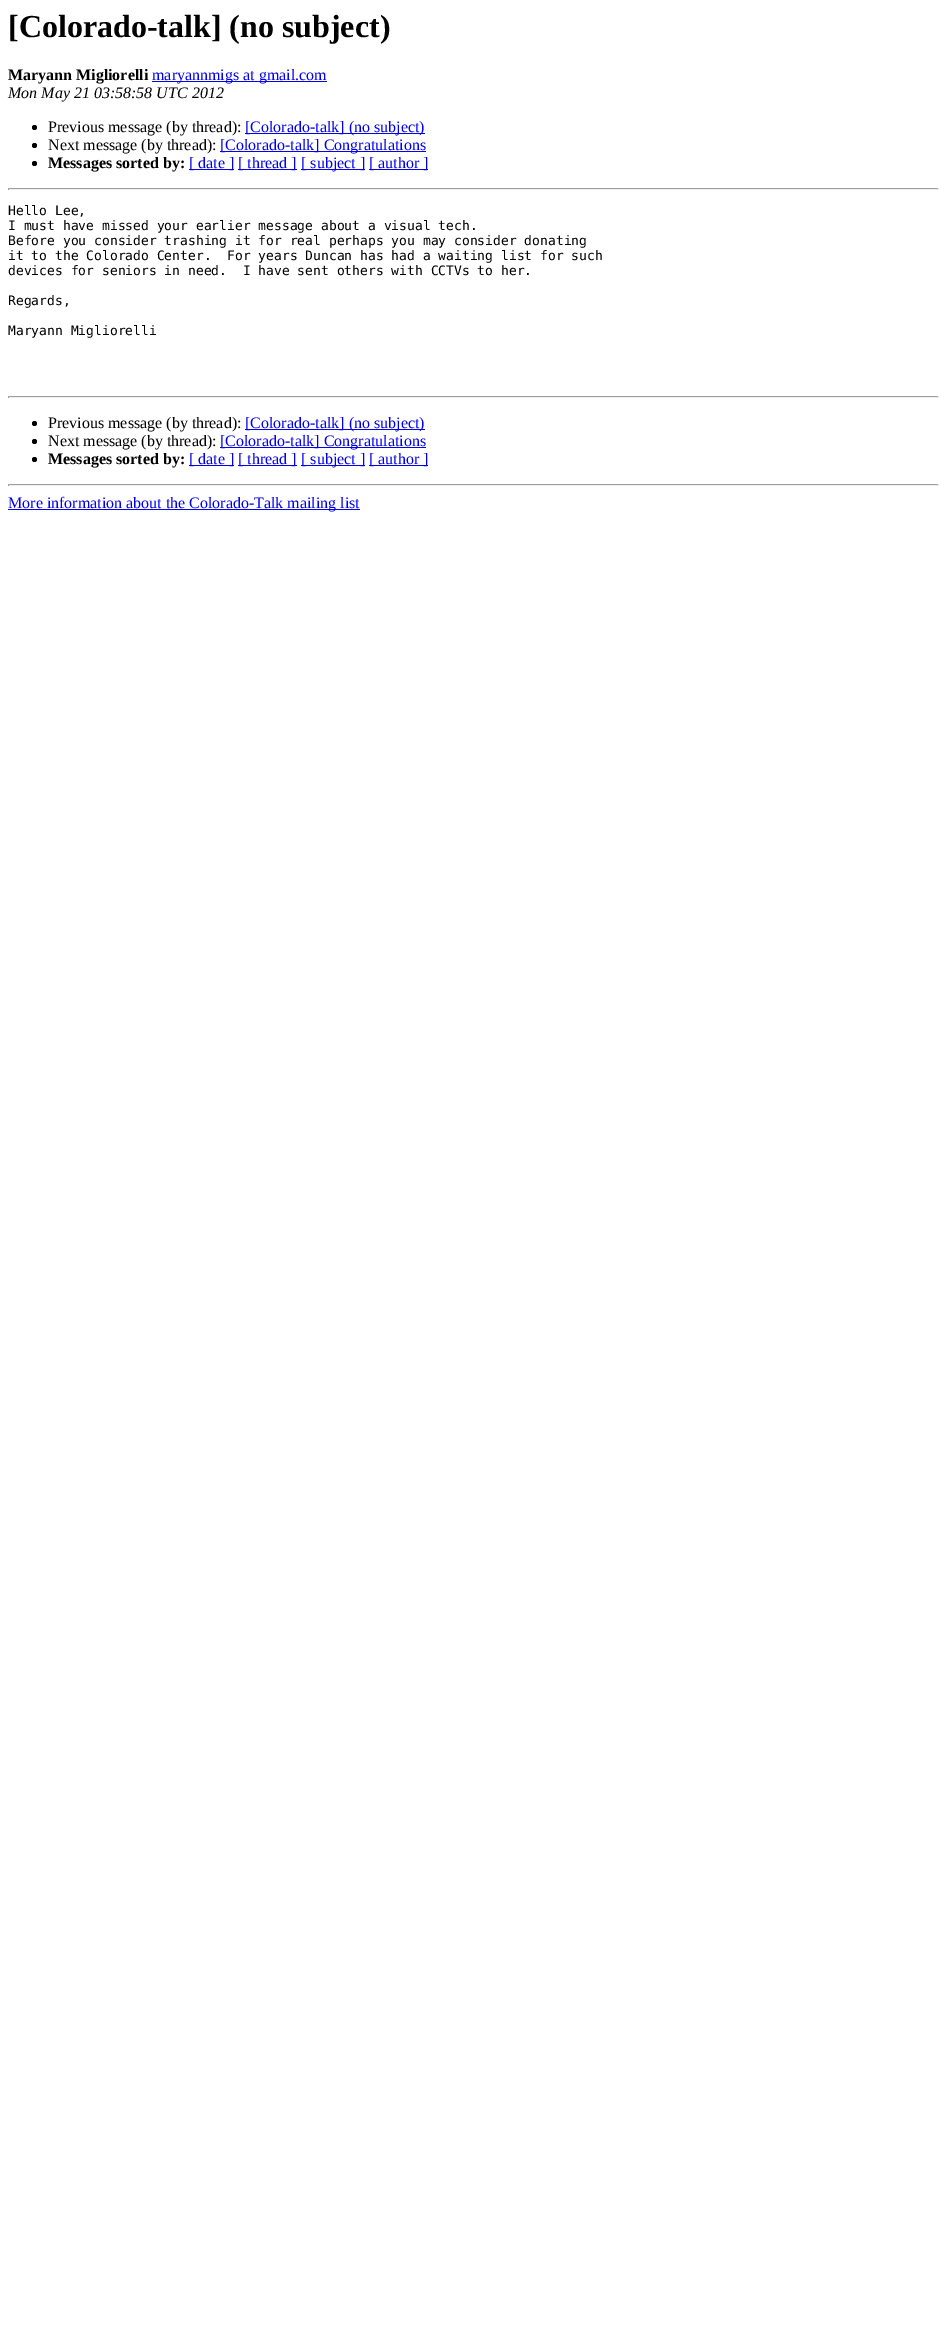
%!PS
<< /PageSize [947 2345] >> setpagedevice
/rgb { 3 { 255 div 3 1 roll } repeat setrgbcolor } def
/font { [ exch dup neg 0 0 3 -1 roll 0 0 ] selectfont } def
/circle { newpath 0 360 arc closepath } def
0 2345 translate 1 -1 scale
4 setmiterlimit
255 255 255 rgb
0 0 947 2345 rectfill
0 0 238 rgb
152 81 175 1 rectfill
0 0 0 rgb
34.5 127.5 2.5 circle fill
0 0 238 rgb
245 133 180 1 rectfill
0 0 0 rgb
34.5 145.5 2.5 circle fill
0 0 238 rgb
220 151 206 1 rectfill
0 0 0 rgb
34.5 163.5 2.5 circle fill
[
  [189 169 45 1 0 0 238]
  [238 169 59 1 0 0 238]
  [301 169 64 1 0 0 238]
  [369 169 59 1 0 0 238]
  [8 188 931 1 159 159 159]
  [938 188 1 2 238 238 238]
  [8 189 931 1 238 238 238]
  [8 188 1 2 159 159 159]
  [8 396 931 1 159 159 159]
  [938 396 1 2 238 238 238]
  [8 397 931 1 238 238 238]
  [8 396 1 2 159 159 159]
] { aload pop rgb rectfill } forall
0 0 0 rgb
34.5 423.5 2.5 circle fill
0 0 238 rgb
245 429 180 1 rectfill
0 0 0 rgb
34.5 441.5 2.5 circle fill
0 0 238 rgb
220 447 206 1 rectfill
0 0 0 rgb
34.5 459.5 2.5 circle fill
[
  [189 465 45 1 0 0 238]
  [238 465 59 1 0 0 238]
  [301 465 64 1 0 0 238]
  [369 465 59 1 0 0 238]
  [8 484 931 1 159 159 159]
  [938 484 1 2 238 238 238]
  [8 485 931 1 238 238 238]
  [8 484 1 2 159 159 159]
  [8 509 352 1 0 0 238]
] { aload pop rgb rectfill } forall
/LiberationSerif-Bold 32 font
0 0 0 rgb
8 37 moveto ([Colorado-talk] \(no subject\)) show
/LiberationSerif-Bold 16 font
8 80 moveto (Maryann Migliorelli) show
/LiberationSerif-Regular 16 font
0 0 238 rgb
152 80 moveto (maryannmigs at gmail.com) show
/LiberationSerif-Italic 16 font
0 0 0 rgb
8 98 moveto (Mon May 21 03:58:58 UTC 2012) show
/LiberationSerif-Regular 16 font
48 132 moveto (Previous message \(by thread\):) show
0 0 238 rgb
245 132 moveto ([Colorado-talk] \(no subject\)) show
0 0 0 rgb
48 150 moveto (Next message \(by thread\):) show
0 0 238 rgb
220 150 moveto ([Colorado-talk] Congratulations) show
/LiberationSerif-Bold 16 font
0 0 0 rgb
48 168 moveto (Messages sorted by:) show
/LiberationSerif-Regular 16 font
0 0 238 rgb
[
  [([ date ]) 189 168]
  [([ thread ]) 238 168]
  [([ subject ]) 301 168]
  [([ author ]) 369 168]
] { aload pop moveto show } forall
/DejaVuSansMono-Regular 13 font
0 0 0 rgb
[
  [(Hello Lee,) 8 215]
  [(I must have missed your earlier message about a visual tech.) 8 230]
  [(Before you consider trashing it for real perhaps you may consider donating) 8 245]
  [(it to the Colorado Center.  For years Duncan has had a waiting list for such) 8 260]
  [(devices for seniors in need.  I have sent others with CCTVs to her.) 8 275]
  [(Regards,) 8 305]
  [(Maryann Migliorelli) 8 335]
] { aload pop moveto show } forall
/LiberationSerif-Regular 16 font
48 428 moveto (Previous message \(by thread\):) show
0 0 238 rgb
245 428 moveto ([Colorado-talk] \(no subject\)) show
0 0 0 rgb
48 446 moveto (Next message \(by thread\):) show
0 0 238 rgb
220 446 moveto ([Colorado-talk] Congratulations) show
/LiberationSerif-Bold 16 font
0 0 0 rgb
48 464 moveto (Messages sorted by:) show
/LiberationSerif-Regular 16 font
0 0 238 rgb
[
  [([ date ]) 189 464]
  [([ thread ]) 238 464]
  [([ subject ]) 301 464]
  [([ author ]) 369 464]
  [(More information about the Colorado-Talk mailing list) 8 508]
] { aload pop moveto show } forall
showpage
